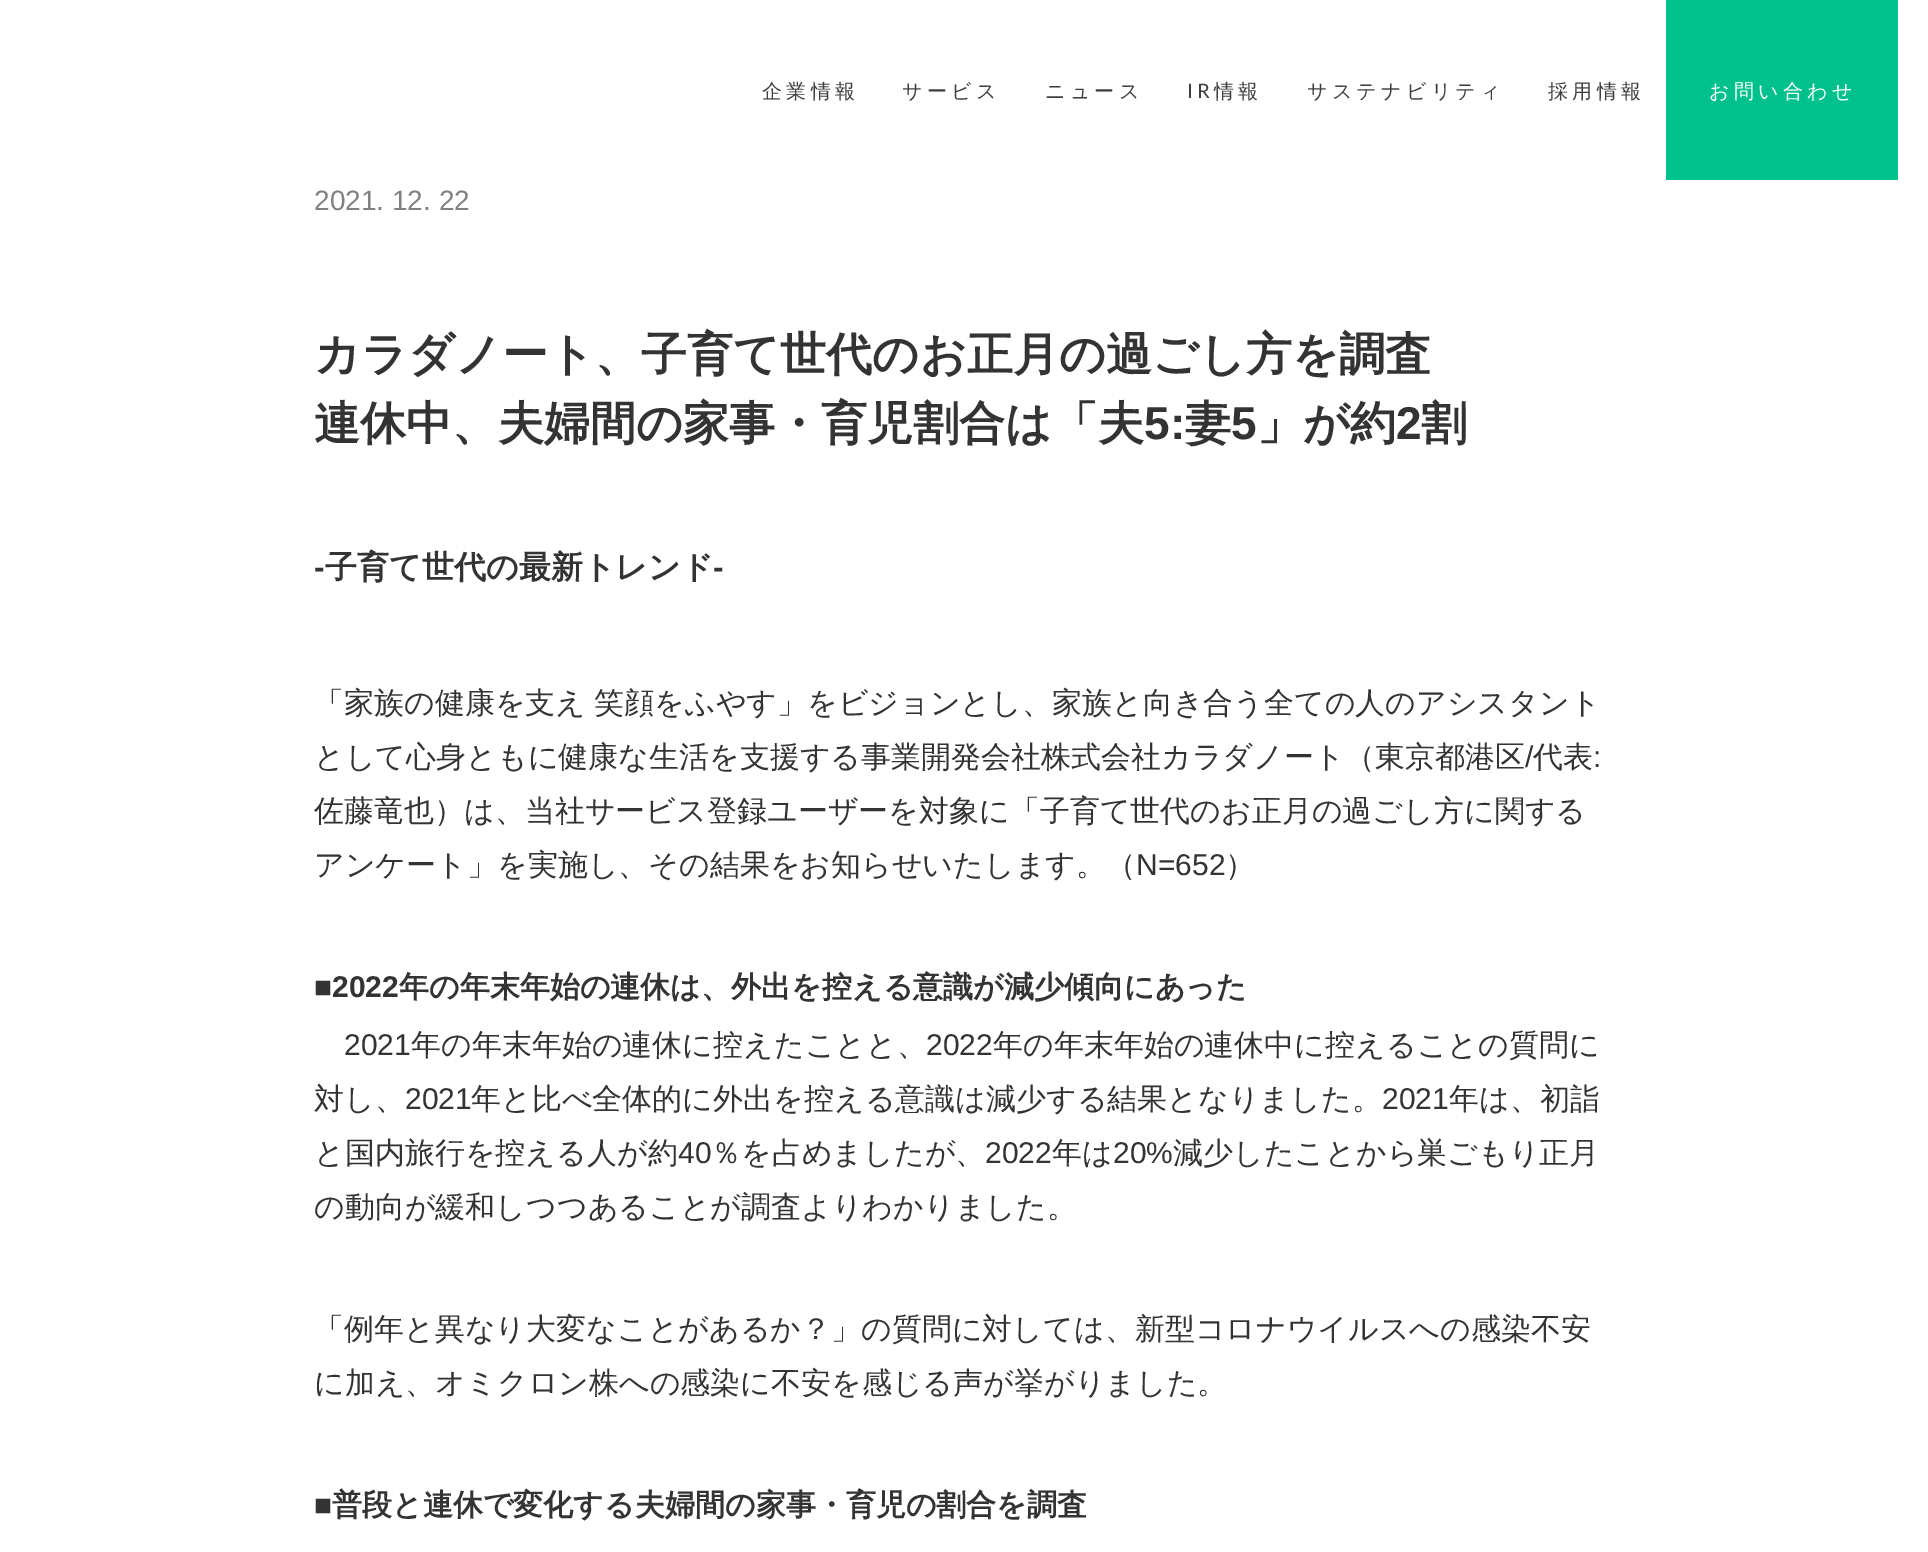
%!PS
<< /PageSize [1928 1552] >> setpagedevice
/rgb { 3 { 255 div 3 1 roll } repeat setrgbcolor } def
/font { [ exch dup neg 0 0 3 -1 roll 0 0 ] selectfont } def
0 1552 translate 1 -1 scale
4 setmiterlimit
255 255 255 rgb
0 0 1928 1552 rectfill
0 193 139 rgb
1666 0 232 180 rectfill
/WenQuanYiZenHei-Medium 20 font
62 62 62 rgb
762 98 moveto 4.25 0 (企業情報) ashow
902 98 moveto 4.25 0 (サービス) ashow
1045 98 moveto 4.25 0 (ニュース) ashow
/Lato-Regular 20 font
1187 98 moveto 4.25 0 (IR) ashow
/WenQuanYiZenHei-Medium 20 font
1214 98 moveto 4.25 0 (情報) ashow
1307 98 moveto 4.25 0 (サステナビリティ) ashow
1548 98 moveto 4.25 0 (採用情報) ashow
255 255 255 rgb
1709 98 moveto 4.25 0 (お問い合わせ) ashow
/LiberationSans-Regular 28 font
128 128 128 rgb
314 210 moveto (2021. 12. 22) show
/WenQuanYiZenHei-Bold 46 font
51 51 51 rgb
314 370 moveto (カラダノート、子育て世代のお正月の過ごし方を調査) show
314 439 moveto (連休中、夫婦間の家事・育児割合は「夫) show
/LiberationSans-Bold 46 font
1144 439 moveto (5:) show
/WenQuanYiZenHei-Bold 46 font
1185 439 moveto (妻) show
/LiberationSans-Bold 46 font
1231 439 moveto (5) show
/WenQuanYiZenHei-Bold 46 font
1257 439 moveto (」が約) show
/LiberationSans-Bold 46 font
1396 439 moveto (2) show
/WenQuanYiZenHei-Bold 46 font
1421 439 moveto (割) show
/LiberationSans-Bold 32 font
314 578 moveto (-) show
/WenQuanYiZenHei-Bold 32 font
325 578 moveto (子育て世代の最新トレンド) show
/LiberationSans-Bold 32 font
713 578 moveto (-) show
/WenQuanYiZenHei-Medium 30 font
314 713 moveto -1 0 32 (「家族の健康を支え 笑顔をふやす」をビジョンとし、家族と向き合う全ての人のアシスタント) widthshow
314 767 moveto (として心身ともに健康な生活を支援する事業開発会社株式会社カラダノート（東京都港区) show
/LiberationSans-Regular 30 font
1525 767 moveto (/) show
/WenQuanYiZenHei-Medium 30 font
1533 767 moveto (代表) show
/LiberationSans-Regular 30 font
1593 767 moveto (:) show
/WenQuanYiZenHei-Medium 30 font
314 821 moveto (佐藤竜也）は、当社サービス登録ユーザーを対象に「子育て世代のお正月の過ごし方に関する) show
314 875 moveto (アンケート」を実施し、その結果をお知らせいたします。（) show
/LiberationSans-Regular 30 font
1136 875 moveto (N=652) show
/WenQuanYiZenHei-Medium 30 font
1225 875 moveto (）) show
/LiberationSans-Bold 30 font
314 997 moveto (■2022) show
/WenQuanYiZenHei-Bold 30 font
399 997 moveto (年の年末年始の連休は、外出を控える意識が減少傾向にあった) show
/LiberationSans-Regular 30 font
344 1055 moveto (2021) show
/WenQuanYiZenHei-Medium 30 font
411 1055 moveto (年の年末年始の連休に控えたことと、) show
/LiberationSans-Regular 30 font
926 1055 moveto (2022) show
/WenQuanYiZenHei-Medium 30 font
993 1055 moveto (年の年末年始の連休中に控えることの質問に) show
314 1109 moveto (対し、) show
/LiberationSans-Regular 30 font
405 1109 moveto (2021) show
/WenQuanYiZenHei-Medium 30 font
471 1109 moveto (年と比べ全体的に外出を控える意識は減少する結果となりました。) show
/LiberationSans-Regular 30 font
1382 1109 moveto (2021) show
/WenQuanYiZenHei-Medium 30 font
1449 1109 moveto (年は、初詣) show
314 1163 moveto (と国内旅行を控える人が約) show
/LiberationSans-Regular 30 font
678 1163 moveto (40) show
/WenQuanYiZenHei-Medium 30 font
711 1163 moveto (％を占めましたが、) show
/LiberationSans-Regular 30 font
985 1163 moveto (2022) show
/WenQuanYiZenHei-Medium 30 font
1052 1163 moveto (年は) show
/LiberationSans-Regular 30 font
1113 1163 moveto (20%) show
/WenQuanYiZenHei-Medium 30 font
[
  [(減少したことから巣ごもり正月) 1173 1163]
  [(の動向が緩和しつつあることが調査よりわかりました。) 314 1217]
  [(「例年と異なり大変なことがあるか？」の質問に対しては、新型コロナウイルスへの感染不安) 314 1339]
  [(に加え、オミクロン株への感染に不安を感じる声が挙がりました。) 314 1393]
] { aload pop moveto show } forall
/LiberationSans-Bold 30 font
314 1515 moveto (■) show
/WenQuanYiZenHei-Bold 30 font
332 1515 moveto (普段と連休で変化する夫婦間の家事・育児の割合を調査) show
showpage
